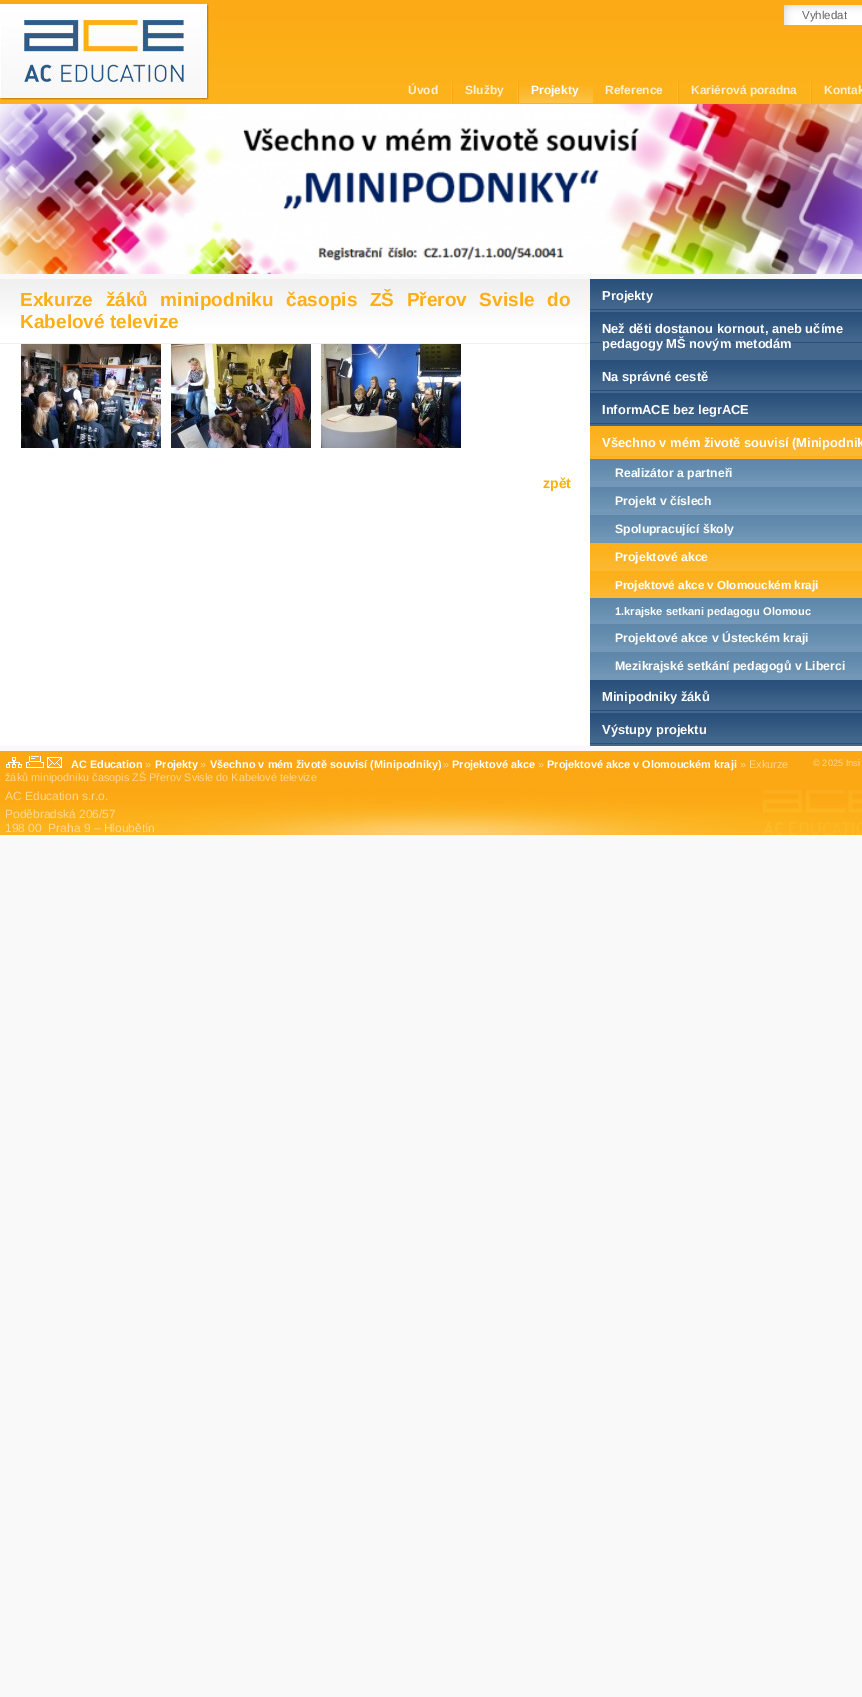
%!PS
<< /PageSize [862 1697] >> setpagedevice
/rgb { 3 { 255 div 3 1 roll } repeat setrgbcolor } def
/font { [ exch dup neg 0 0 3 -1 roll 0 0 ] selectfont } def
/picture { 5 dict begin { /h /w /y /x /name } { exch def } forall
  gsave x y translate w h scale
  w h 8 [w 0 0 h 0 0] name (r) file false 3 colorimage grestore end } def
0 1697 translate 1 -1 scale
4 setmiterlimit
249 249 249 rgb
0 0 862 1697 rectfill
(img/1.rgb) 210 0 652 104 picture
(img/2.rgb) 0 0 210 104 picture
255 255 255 rgb
784 5 78 20 rectfill
(img/3.rgb) 784 5 78 20 picture
(img/4.rgb) 451 80 2 23 picture
(img/4.rgb) 517 80 2 23 picture
(img/4.rgb) 677 80 2 23 picture
(img/4.rgb) 810 80 2 23 picture
(img/5.rgb) 519 86 74 17 picture
(img/6.rgb) 0 104 862 170 picture
0 344 590 402 rectfill
(img/7.rgb) 0 279 590 65 picture
(img/8.rgb) 21 344 140 105 picture
(img/9.rgb) 171 344 140 105 picture
(img/10.rgb) 321 344 140 105 picture
68 103 142 rgb
590 310 272 2 rectfill
(img/11.rgb) 590 279 272 31 picture
590 343 272 17 rectfill
(img/11.rgb) 590 312 272 31 picture
590 391 272 2 rectfill
(img/11.rgb) 590 360 272 31 picture
590 424 272 2 rectfill
(img/11.rgb) 590 393 272 31 picture
252 181 40 rgb
590 457 272 2 rectfill
(img/12.rgb) 590 426 272 31 picture
114 151 183 rgb
590 481 272 6 rectfill
(img/13.rgb) 590 459 272 22 picture
590 509 272 6 rectfill
(img/13.rgb) 590 487 272 22 picture
590 537 272 6 rectfill
(img/13.rgb) 590 515 272 22 picture
(img/14.rgb) 590 543 272 28 picture
(img/15.rgb) 590 571 272 27 picture
590 620 272 4 rectfill
(img/13.rgb) 590 598 272 22 picture
590 646 272 6 rectfill
(img/13.rgb) 590 624 272 22 picture
590 674 272 6 rectfill
(img/13.rgb) 590 652 272 22 picture
68 103 142 rgb
590 711 272 2 rectfill
(img/11.rgb) 590 680 272 31 picture
590 744 272 2 rectfill
(img/11.rgb) 590 713 272 31 picture
252 167 20 rgb
0 751 862 39 rectfill
(img/16.rgb) 0 790 862 45 picture
(img/17.rgb) 6 757 16 11 picture
(img/18.rgb) 26 756 18 12 picture
(img/19.rgb) 47 757 15 11 picture
/LiberationSans-Regular 11.5 font
102 102 102 rgb
802 19 moveto (Vyhledat) show
/LiberationSans-Bold 12 font
253 239 212 rgb
408 94 moveto (Úvod) show
465 94 moveto (Služby) show
255 255 255 rgb
531 94 moveto (Projekty) show
253 239 212 rgb
[
  [(Reference) 605 94]
  [(Kariérová poradna) 691 94]
  [(Kontak) 824 94]
] { aload pop moveto show } forall
/LiberationSans-Bold 19.05 font
252 175 22 rgb
20 306 moveto 7.25 0 32 (Exkurze žáků minipodniku časopis ZŠ Přerov Svisle do) widthshow
20 328 moveto (Kabelové televize) show
/LiberationSans-Bold 14 font
246 179 10 rgb
543 488 moveto (zpět) show
/LiberationSans-Bold 12.9 font
255 255 255 rgb
[
  [(Projekty) 602 300]
  [(Než děti dostanou kornout, aneb učíme) 602 333]
  [(pedagogy MŠ novým metodám) 602 348]
  [(Na správné cestě) 602 381]
  [(InformACE bez legrACE) 602 414]
  [(Všechno v mém životě souvisí \(Minipodnik) 602 447]
] { aload pop moveto show } forall
/LiberationSans-Bold 12.25 font
[
  [(Realizátor a partneři) 615 477]
  [(Projekt v číslech) 615 505]
  [(Spolupracující školy) 615 533]
  [(Projektové akce) 615 561]
] { aload pop moveto show } forall
/LiberationSans-Bold 11.7 font
615 589 moveto (Projektové akce v Olomouckém kraji) show
/LiberationSans-Bold 11.1 font
615 615 moveto (1.krajske setkani pedagogu Olomouc) show
/LiberationSans-Bold 12.25 font
615 642 moveto (Projektové akce v Ústeckém kraji) show
615 670 moveto (Mezikrajské setkání pedagogů v Liberci) show
/LiberationSans-Bold 12.9 font
602 701 moveto (Minipodniky žáků) show
602 734 moveto (Výstupy projektu) show
/LiberationSans-Bold 10.9 font
71 768 moveto (AC Education) show
/LiberationSans-Regular 10.9 font
255 216 146 rgb
145 768 moveto (») show
/LiberationSans-Bold 10.9 font
255 255 255 rgb
155 768 moveto (Projekty) show
/LiberationSans-Regular 10.9 font
255 216 146 rgb
200 768 moveto (») show
/LiberationSans-Bold 10.9 font
255 255 255 rgb
210 768 moveto (Všechno v mém životě souvisí \(Minipodniky\)) show
/LiberationSans-Regular 10.9 font
255 216 146 rgb
443 768 moveto (») show
/LiberationSans-Bold 10.9 font
255 255 255 rgb
452 768 moveto (Projektové akce) show
/LiberationSans-Regular 10.9 font
255 216 146 rgb
538 768 moveto (») show
/LiberationSans-Bold 10.9 font
255 255 255 rgb
547 768 moveto (Projektové akce v Olomouckém kraji) show
/LiberationSans-Regular 10.9 font
255 216 146 rgb
740 768 moveto (» Exkurze) show
5 781 moveto (žáků minipodniku časopis ZŠ Přerov Svisle do Kabelové televize) show
/LiberationSans-Regular 9.25 font
813 766 moveto (© 2025 Insi) show
/LiberationSans-Regular 12 font
[
  [(AC Education s.r.o.) 5 800]
  [(Poděbradská 206/57) 5 818]
  [(198 00  Praha 9 – Hloubětín) 5 832]
] { aload pop moveto show } forall
showpage
